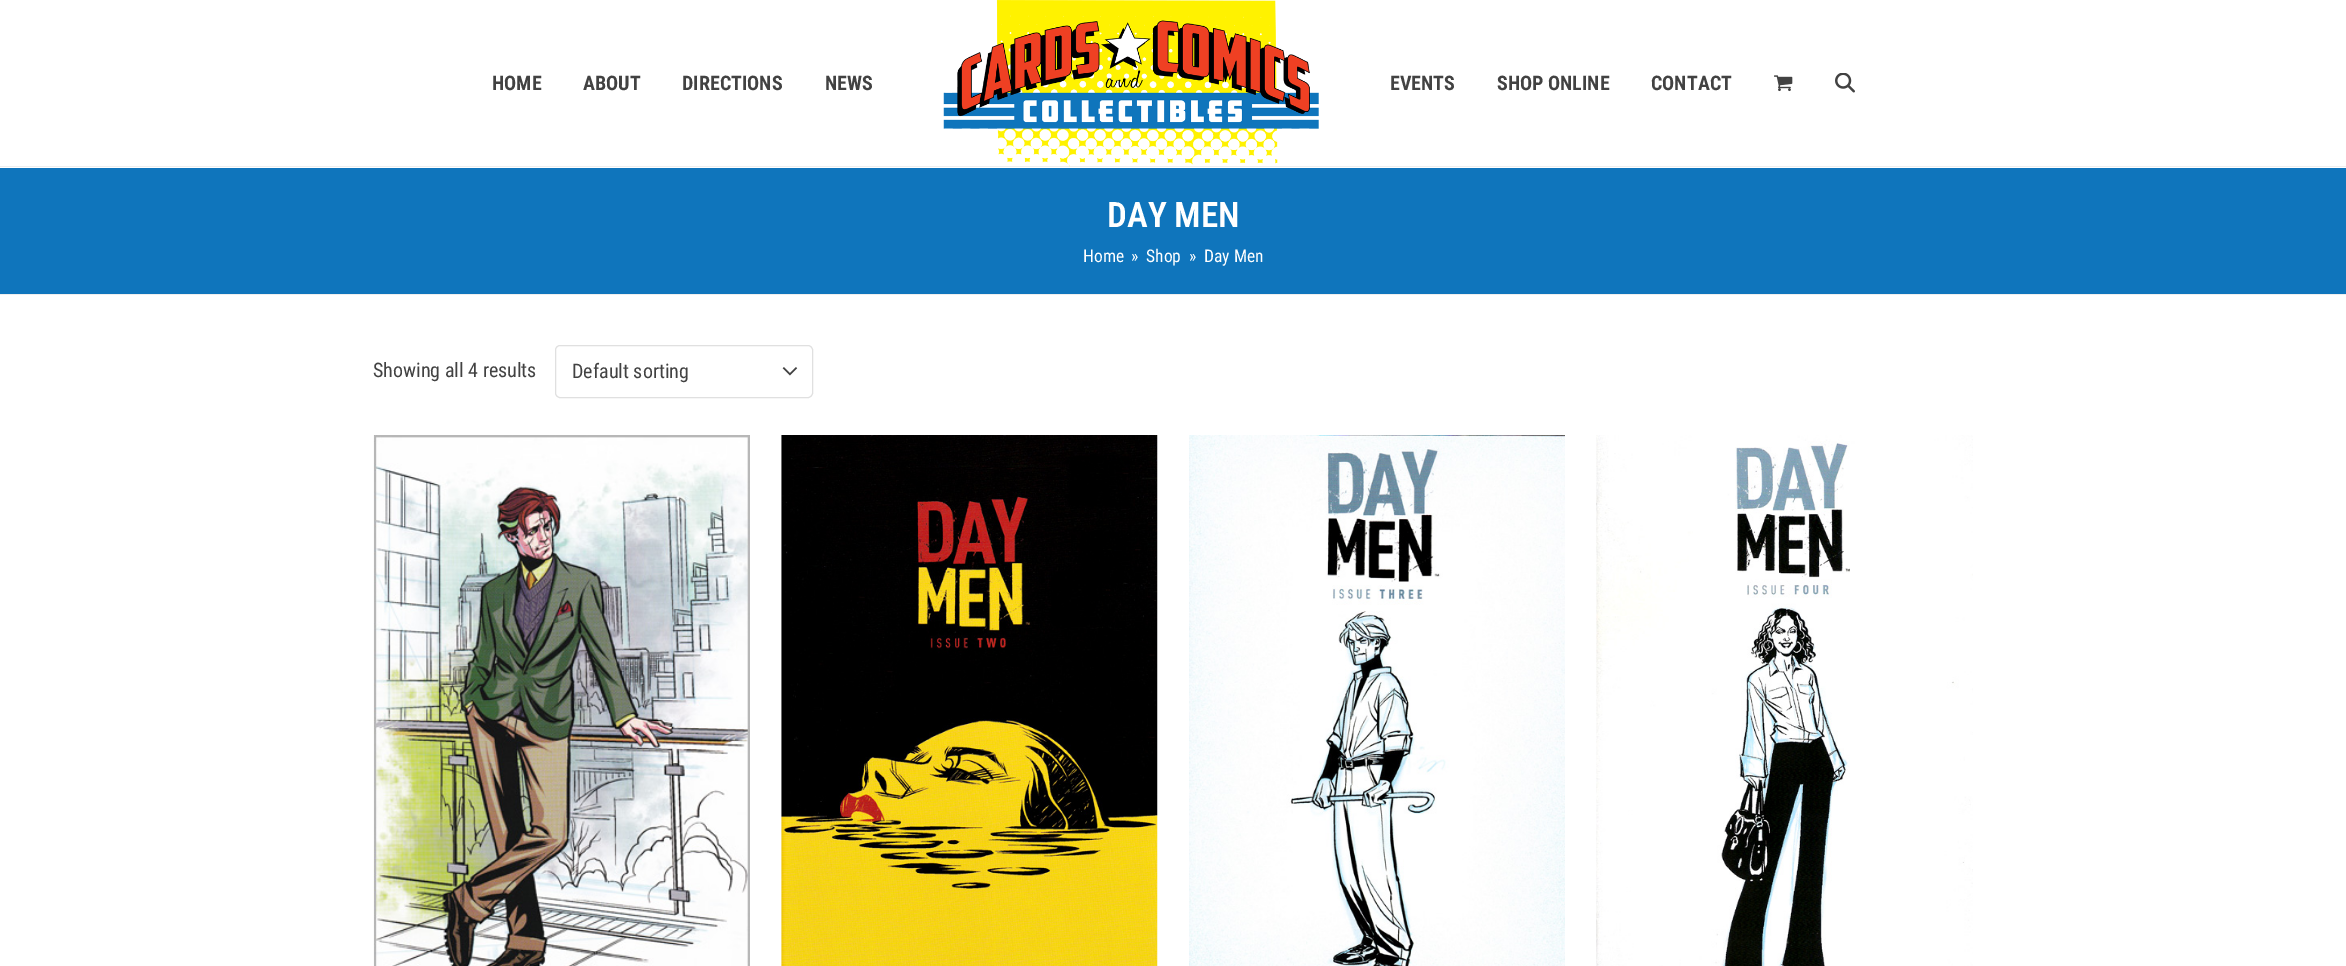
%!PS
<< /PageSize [2346 966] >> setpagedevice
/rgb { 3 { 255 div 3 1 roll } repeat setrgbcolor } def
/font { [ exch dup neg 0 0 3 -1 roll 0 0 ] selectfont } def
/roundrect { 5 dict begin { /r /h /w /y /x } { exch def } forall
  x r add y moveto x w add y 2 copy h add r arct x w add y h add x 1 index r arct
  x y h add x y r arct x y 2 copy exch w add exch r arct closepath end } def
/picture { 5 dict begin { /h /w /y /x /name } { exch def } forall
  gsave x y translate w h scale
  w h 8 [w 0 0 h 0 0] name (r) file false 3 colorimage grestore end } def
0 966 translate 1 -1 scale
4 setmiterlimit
255 255 255 rgb
0 0 2346 966 rectfill
238 238 238 rgb
0 166 2346 1 rectfill
(img/1.rgb) 943 0 376 167 picture
(img/2.rgb) 1774 75 19 17 picture
(img/3.rgb) 1835 73 20 20 picture
15 117 188 rgb
0 168 2346 126 rectfill
238 238 238 rgb
0 294 2346 1 rectfill
224 224 224 rgb
555.5 345.5 257 52 4.5 roundrect stroke
(img/4.rgb) 782 367 16 9 picture
(img/5.rgb) 373 435 377 531 picture
(img/6.rgb) 781 435 377 531 picture
(img/7.rgb) 1189 435 376 531 picture
(img/8.rgb) 1596 435 377 531 picture
/RobotoCondensed-Bold 20 font
66 66 66 rgb
[
  [(HOME) 492 90]
  [(ABOUT) 583 90]
  [(DIRECTIONS) 682 90]
  [(NEWS) 825 90]
  [(EVENTS) 1390 90]
  [(SHOP ONLINE) 1497 90]
  [(CONTACT) 1651 90]
] { aload pop moveto show } forall
/RobotoCondensed-SemiBold 35 font
255 255 255 rgb
1107 227 moveto (DAY MEN) show
/RobotoCondensed-Regular 17.5 font
[
  [(Home) 1083 262]
  [(») 1131 262]
  [(Shop) 1146 262]
  [(») 1189 262]
  [(Day Men) 1204 262]
] { aload pop moveto show } forall
/RobotoCondensed-Regular 20 font
66 66 66 rgb
373 377 moveto (Showing all 4 results) show
572 378 moveto (Default sorting) show
showpage
